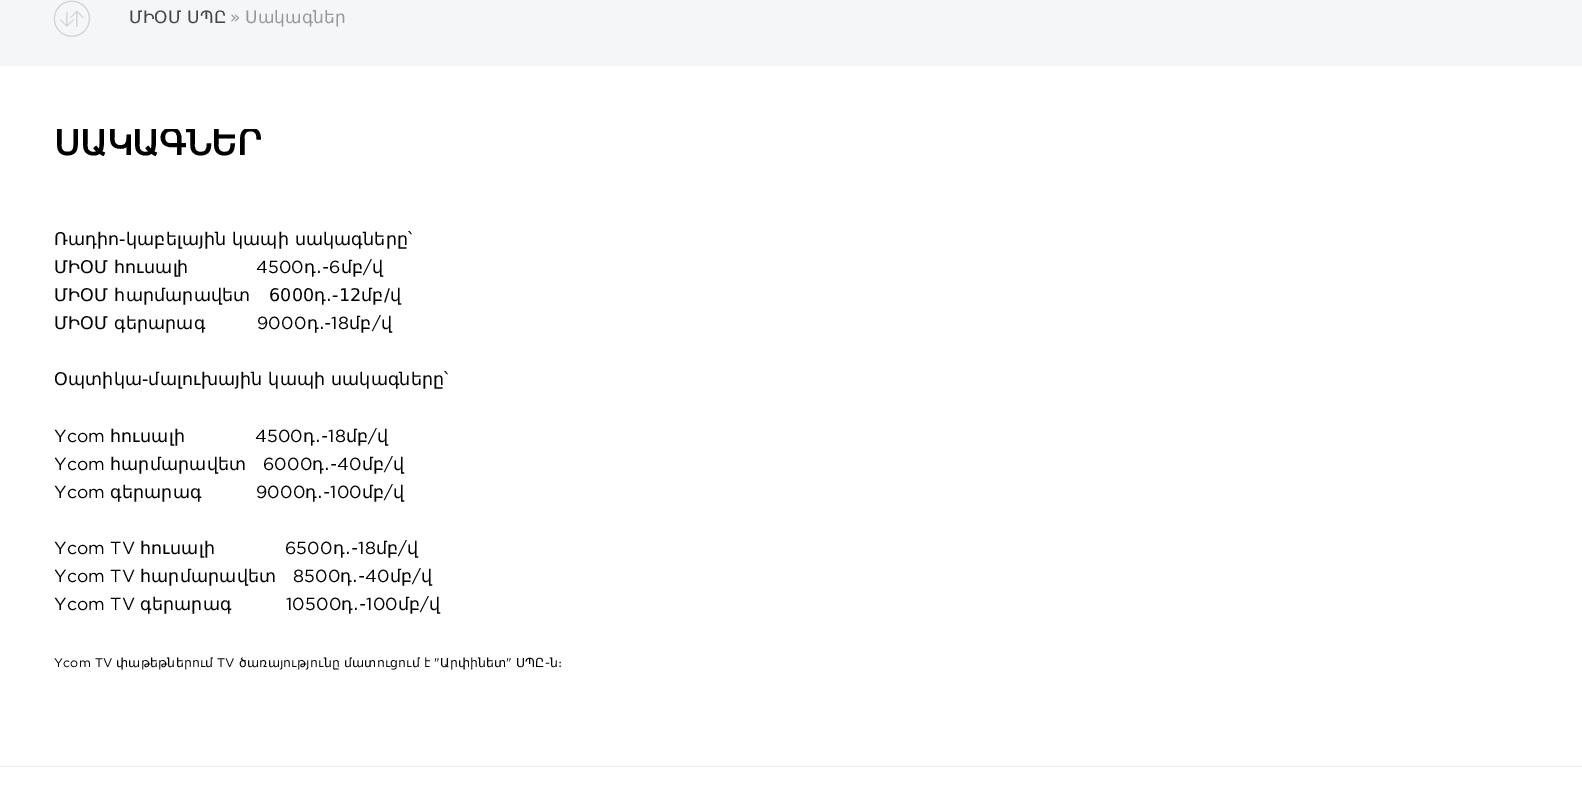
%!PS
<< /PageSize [1582 806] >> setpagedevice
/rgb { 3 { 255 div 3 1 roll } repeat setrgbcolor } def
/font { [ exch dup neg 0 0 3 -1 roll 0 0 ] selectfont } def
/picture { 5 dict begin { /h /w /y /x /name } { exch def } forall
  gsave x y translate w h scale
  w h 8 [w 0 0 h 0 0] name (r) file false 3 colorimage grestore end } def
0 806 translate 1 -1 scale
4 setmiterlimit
255 255 255 rgb
0 0 1582 806 rectfill
244 246 247 rgb
0 0 1582 66 rectfill
(img/1.rgb) 54 0 36 37 picture
236 237 237 rgb
0 766 1582 1 rectfill
/DejaVuSans-Regular 17 font
68 68 68 rgb
129 23 moveto 0.15 0 (ՄԻՕՄ ՍՊԸ) ashow
148 153 158 rgb
230 23 moveto -1 0 32 0.15 0 (» Սակագներ) awidthshow
gsave
54 129 1091 41 rectclip
/DejaVuSans-Bold 35.5 font
0 0 0 rgb
54 155 moveto -0.25 0 (ՍԱԿԱԳՆԵՐ) ashow
grestore
/DejaVuSans-Regular 17.5 font
0 0 0 rgb
54 245 moveto 0.15 0 (Ռադիո-կաբելային կապի սակագները՝) ashow
54 273 moveto 0.15 0 (ՄԻՕՄ հուսալի) ashow
/Gotham-Regular 17.5 font
256 273 moveto 0.15 0 (4500) ashow
/DejaVuSans-Regular 17.5 font
304 273 moveto 0.15 0 (դ․) ashow
/Gotham-Regular 17.5 font
322 273 moveto 0.15 0 (-6) ashow
/DejaVuSans-Regular 17.5 font
341 273 moveto 0.15 0 (մբ) ashow
/Gotham-Regular 17.5 font
363 273 moveto 0.15 0 (/) ashow
/DejaVuSans-Regular 17.5 font
372 273 moveto 0.15 0 (վ) ashow
54 301 moveto 0.5 0 32 0.15 0 (ՄԻՕՄ հարմարավետ   6000դ․-12մբ/վ) awidthshow
54 329 moveto 0.15 0 (ՄԻՕՄ գերարագ) ashow
/Gotham-Regular 17.5 font
257 329 moveto 0.15 0 (9000) ashow
/DejaVuSans-Regular 17.5 font
307 329 moveto 0.15 0 (դ․) ashow
/Gotham-Regular 17.5 font
324 329 moveto 0.15 0 (-18) ashow
/DejaVuSans-Regular 17.5 font
349 329 moveto 0.15 0 (մբ) ashow
/Gotham-Regular 17.5 font
372 329 moveto 0.15 0 (/) ashow
/DejaVuSans-Regular 17.5 font
381 329 moveto 0.15 0 (վ) ashow
54 385 moveto 0.15 0 (Օպտիկա-մալուխային կապի սակագները՝) ashow
/Gotham-Regular 17.5 font
54 442 moveto 0.15 0 (Ycom) ashow
/DejaVuSans-Regular 17.5 font
110 442 moveto 0.15 0 (հուսալի) ashow
/Gotham-Regular 17.5 font
255 442 moveto 0.15 0 (4500) ashow
/DejaVuSans-Regular 17.5 font
303 442 moveto 0.15 0 (դ․) ashow
/Gotham-Regular 17.5 font
321 442 moveto 0.15 0 (-18) ashow
/DejaVuSans-Regular 17.5 font
346 442 moveto 0.15 0 (մբ) ashow
/Gotham-Regular 17.5 font
368 442 moveto 0.15 0 (/) ashow
/DejaVuSans-Regular 17.5 font
377 442 moveto 0.15 0 (վ) ashow
/Gotham-Regular 17.5 font
54 470 moveto 0.15 0 (Ycom) ashow
/DejaVuSans-Regular 17.5 font
110 470 moveto 0.15 0 (հարմարավետ) ashow
/Gotham-Regular 17.5 font
263 470 moveto 0.15 0 (6000) ashow
/DejaVuSans-Regular 17.5 font
312 470 moveto 0.15 0 (դ․) ashow
/Gotham-Regular 17.5 font
330 470 moveto 0.15 0 (-40) ashow
/DejaVuSans-Regular 17.5 font
362 470 moveto 0.15 0 (մբ) ashow
/Gotham-Regular 17.5 font
384 470 moveto 0.15 0 (/) ashow
/DejaVuSans-Regular 17.5 font
393 470 moveto 0.15 0 (վ) ashow
/Gotham-Regular 17.5 font
54 498 moveto 0.15 0 (Ycom) ashow
/DejaVuSans-Regular 17.5 font
110 498 moveto 0.15 0 (գերարագ) ashow
/Gotham-Regular 17.5 font
256 498 moveto 0.15 0 (9000) ashow
/DejaVuSans-Regular 17.5 font
305 498 moveto 0.15 0 (դ․) ashow
/Gotham-Regular 17.5 font
323 498 moveto 0.15 0 (-100) ashow
/DejaVuSans-Regular 17.5 font
362 498 moveto 0.15 0 (մբ) ashow
/Gotham-Regular 17.5 font
384 498 moveto 0.15 0 (/) ashow
/DejaVuSans-Regular 17.5 font
393 498 moveto 0.15 0 (վ) ashow
/Gotham-Regular 17.5 font
54 554 moveto 0.15 0 (Ycom TV) ashow
/DejaVuSans-Regular 17.5 font
140 554 moveto 0.15 0 (հուսալի) ashow
/Gotham-Regular 17.5 font
285 554 moveto 0.15 0 (6500) ashow
/DejaVuSans-Regular 17.5 font
333 554 moveto 0.15 0 (դ․) ashow
/Gotham-Regular 17.5 font
351 554 moveto 0.15 0 (-18) ashow
/DejaVuSans-Regular 17.5 font
376 554 moveto 0.15 0 (մբ) ashow
/Gotham-Regular 17.5 font
398 554 moveto 0.15 0 (/) ashow
/DejaVuSans-Regular 17.5 font
407 554 moveto 0.15 0 (վ) ashow
/Gotham-Regular 17.5 font
54 582 moveto 0.15 0 (Ycom TV) ashow
/DejaVuSans-Regular 17.5 font
140 582 moveto 0.15 0 (հարմարավետ) ashow
/Gotham-Regular 17.5 font
293 582 moveto 0.15 0 (8500) ashow
/DejaVuSans-Regular 17.5 font
340 582 moveto 0.15 0 (դ․) ashow
/Gotham-Regular 17.5 font
358 582 moveto 0.15 0 (-40) ashow
/DejaVuSans-Regular 17.5 font
390 582 moveto 0.15 0 (մբ) ashow
/Gotham-Regular 17.5 font
412 582 moveto 0.15 0 (/) ashow
/DejaVuSans-Regular 17.5 font
421 582 moveto 0.15 0 (վ) ashow
/Gotham-Regular 17.5 font
54 610 moveto 0.15 0 (Ycom TV) ashow
/DejaVuSans-Regular 17.5 font
140 610 moveto 0.15 0 (գերարագ) ashow
/Gotham-Regular 17.5 font
286 610 moveto 0.15 0 (10500) ashow
/DejaVuSans-Regular 17.5 font
341 610 moveto 0.15 0 (դ․) ashow
/Gotham-Regular 17.5 font
359 610 moveto 0.15 0 (-100) ashow
/DejaVuSans-Regular 17.5 font
398 610 moveto 0.15 0 (մբ) ashow
/Gotham-Regular 17.5 font
420 610 moveto 0.15 0 (/) ashow
/DejaVuSans-Regular 17.5 font
429 610 moveto 0.15 0 (վ) ashow
/Gotham-Regular 12.5 font
54 667 moveto 0.15 0 (Ycom TV) ashow
/DejaVuSans-Regular 12.5 font
116 667 moveto 0.15 0 (փաթեթներում) ashow
/Gotham-Regular 12.5 font
217 667 moveto 0.15 0 (TV) ashow
/DejaVuSans-Regular 12.5 font
239 667 moveto 0.15 0 (ծառայությունը մատուցում է) ashow
/Gotham-Regular 12.5 font
434 667 moveto 0.15 0 (") ashow
/DejaVuSans-Regular 12.5 font
440 667 moveto 0.15 0 (Արփինետ) ashow
/Gotham-Regular 12.5 font
506 667 moveto 0.15 0 (") ashow
/DejaVuSans-Regular 12.5 font
516 667 moveto 0.15 0 (ՍՊԸ) ashow
/Gotham-Regular 12.5 font
545 667 moveto 0.15 0 (-) ashow
/DejaVuSans-Regular 12.5 font
550 667 moveto 0.15 0 (ն։) ashow
showpage
